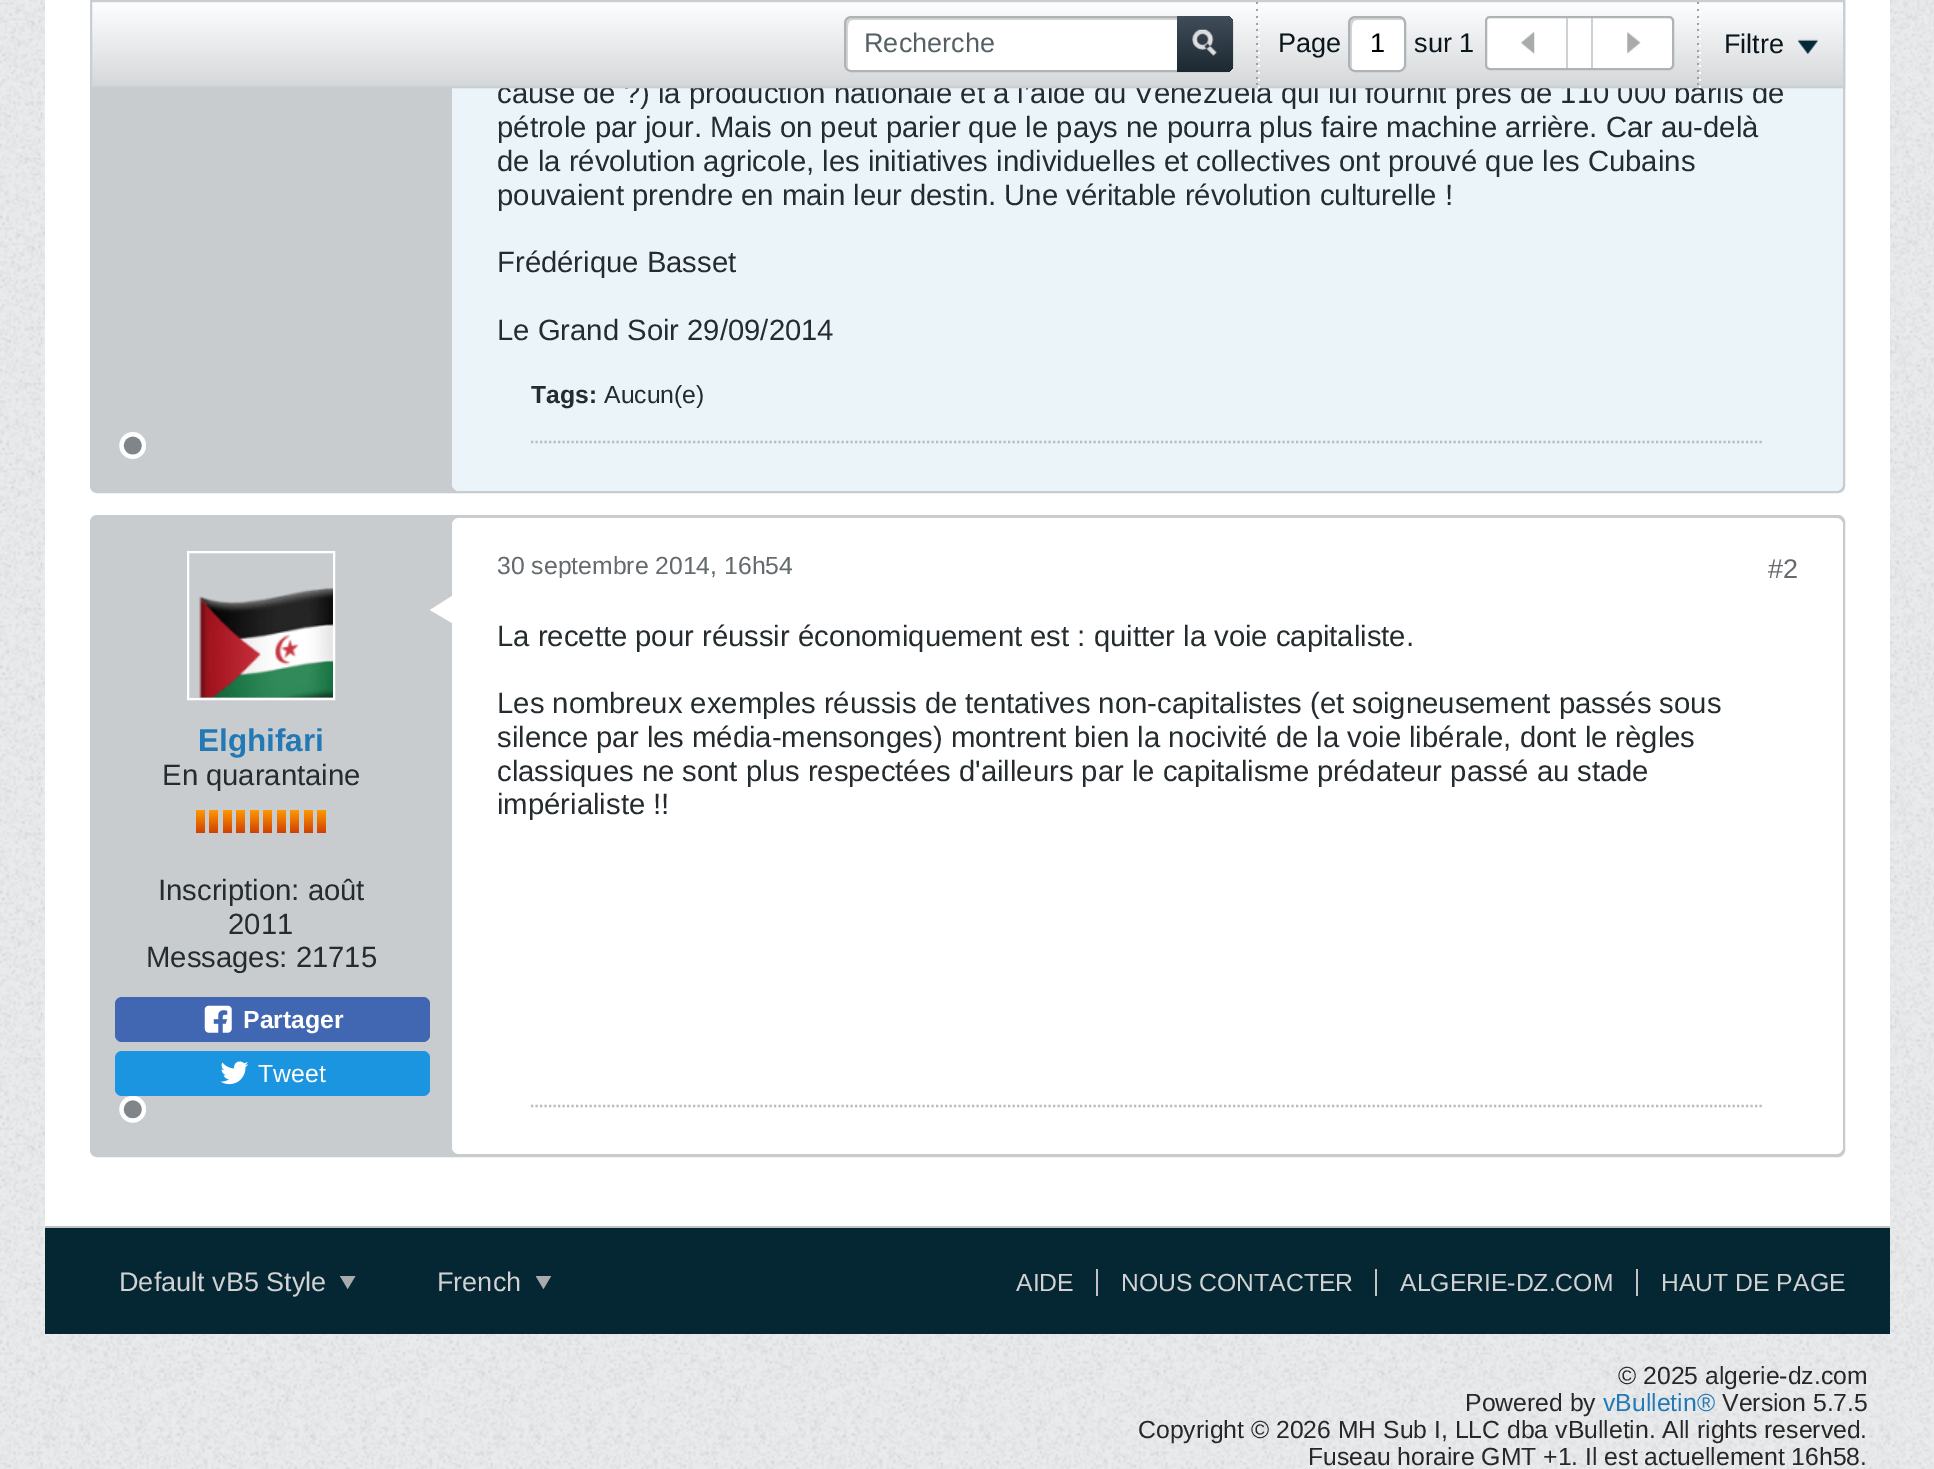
%!PS
<< /PageSize [1934 1469] >> setpagedevice
/rgb { 3 { 255 div 3 1 roll } repeat setrgbcolor } def
/font { [ exch dup neg 0 0 3 -1 roll 0 0 ] selectfont } def
/roundrect { 5 dict begin { /r /h /w /y /x } { exch def } forall
  x r add y moveto x w add y 2 copy h add r arct x w add y h add x 1 index r arct
  x y h add x y r arct x y 2 copy exch w add exch r arct closepath end } def
/picture { 5 dict begin { /h /w /y /x /name } { exch def } forall
  gsave x y translate w h scale
  w h 8 [w 0 0 h 0 0] name (r) file false 3 colorimage grestore end } def
0 1469 translate 1 -1 scale
4 setmiterlimit
234 235 236 rgb
0 0 1934 1469 rectfill
(img/1.rgb) 0 0 1934 1469 picture
255 255 255 rgb
45 0 1845 1226 rectfill
200 204 206 rgb
91 -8 1753 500 6 roundrect gsave fill grestore
2 setlinewidth
stroke
235 244 249 rgb
452 -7 1391 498 7 roundrect fill
183 188 190 rgb
2.2 setlinewidth
[2.25 2.25] 0 setdash
531 442 moveto 1764 442 lineto stroke
(img/6.rgb) 119 432 27 27 picture
200 204 206 rgb
91 516 1753 640 6 roundrect gsave fill grestore
2 setlinewidth
[] 0 setdash
stroke
255 255 255 rgb
452 518 1391 636 7 roundrect fill
452 596 moveto 452 623 lineto 430 610 lineto closepath fill
183 188 190 rgb
2.2 setlinewidth
[2.25 2.25] 0 setdash
531 1106 moveto 1764 1106 lineto stroke
255 255 255 rgb
2 setlinewidth
[] 0 setdash
188 552 146 147 rectstroke
(img/7.rgb) 199 587 134 111 picture
gsave 196 810 moveto 205 810 lineto 205 833 lineto 196 833 lineto closepath clip newpath
<< /ShadingType 2 /ColorSpace /DeviceRGB /Coords [200 810 200 833] /Extend [true true] /Function << /FunctionType 2 /Domain [0 1] /C0 [1 0.6 0] /C1 [0.812 0.255 0.016] /N 1 >> >> shfill grestore
gsave 209 810 moveto 218 810 lineto 218 833 lineto 209 833 lineto closepath clip newpath
<< /ShadingType 2 /ColorSpace /DeviceRGB /Coords [214 810 214 833] /Extend [true true] /Function << /FunctionType 2 /Domain [0 1] /C0 [1 0.6 0] /C1 [0.812 0.255 0.016] /N 1 >> >> shfill grestore
gsave 223 810 moveto 232 810 lineto 232 833 lineto 223 833 lineto closepath clip newpath
<< /ShadingType 2 /ColorSpace /DeviceRGB /Coords [227 810 227 833] /Extend [true true] /Function << /FunctionType 2 /Domain [0 1] /C0 [1 0.6 0] /C1 [0.812 0.255 0.016] /N 1 >> >> shfill grestore
gsave 236 810 moveto 245 810 lineto 245 833 lineto 236 833 lineto closepath clip newpath
<< /ShadingType 2 /ColorSpace /DeviceRGB /Coords [241 810 241 833] /Extend [true true] /Function << /FunctionType 2 /Domain [0 1] /C0 [1 0.6 0] /C1 [0.812 0.255 0.016] /N 1 >> >> shfill grestore
gsave 250 810 moveto 259 810 lineto 259 833 lineto 250 833 lineto closepath clip newpath
<< /ShadingType 2 /ColorSpace /DeviceRGB /Coords [254 810 254 833] /Extend [true true] /Function << /FunctionType 2 /Domain [0 1] /C0 [1 0.6 0] /C1 [0.812 0.255 0.016] /N 1 >> >> shfill grestore
gsave 263 810 moveto 272 810 lineto 272 833 lineto 263 833 lineto closepath clip newpath
<< /ShadingType 2 /ColorSpace /DeviceRGB /Coords [268 810 268 833] /Extend [true true] /Function << /FunctionType 2 /Domain [0 1] /C0 [1 0.6 0] /C1 [0.812 0.255 0.016] /N 1 >> >> shfill grestore
gsave 277 810 moveto 286 810 lineto 286 833 lineto 277 833 lineto closepath clip newpath
<< /ShadingType 2 /ColorSpace /DeviceRGB /Coords [281 810 281 833] /Extend [true true] /Function << /FunctionType 2 /Domain [0 1] /C0 [1 0.6 0] /C1 [0.812 0.255 0.016] /N 1 >> >> shfill grestore
gsave 290 810 moveto 299 810 lineto 299 833 lineto 290 833 lineto closepath clip newpath
<< /ShadingType 2 /ColorSpace /DeviceRGB /Coords [295 810 295 833] /Extend [true true] /Function << /FunctionType 2 /Domain [0 1] /C0 [1 0.6 0] /C1 [0.812 0.255 0.016] /N 1 >> >> shfill grestore
gsave 304 810 moveto 313 810 lineto 313 833 lineto 304 833 lineto closepath clip newpath
<< /ShadingType 2 /ColorSpace /DeviceRGB /Coords [308 810 308 833] /Extend [true true] /Function << /FunctionType 2 /Domain [0 1] /C0 [1 0.6 0] /C1 [0.812 0.255 0.016] /N 1 >> >> shfill grestore
gsave 317 810 moveto 326 810 lineto 326 833 lineto 317 833 lineto closepath clip newpath
<< /ShadingType 2 /ColorSpace /DeviceRGB /Coords [322 810 322 833] /Extend [true true] /Function << /FunctionType 2 /Domain [0 1] /C0 [1 0.6 0] /C1 [0.812 0.255 0.016] /N 1 >> >> shfill grestore
(img/8.rgb) 119 1096 27 27 picture
66 103 178 rgb
115 997 315 45 7 roundrect fill
(img/9.rgb) 204 1005 28 28 picture
27 149 224 rgb
115 1051 315 45 7 roundrect fill
(img/10.rgb) 220 1061 29 24 picture
5 39 51 rgb
45 1228 1845 106 rectfill
194 194 194 rgb
45 1226 1845 2 rectfill
(img/11.rgb) 340 1276 16 13 picture
(img/12.rgb) 536 1276 15 13 picture
[
  [1096 1269 2 27 194 194 194]
  [1375 1269 2 27 194 194 194]
  [1636 1269 2 27 194 194 194]
] { aload pop rgb rectfill } forall
/LiberationSans-Regular 29.25 font
37 44 47 rgb
497 103 moveto (cause de ?\) la production nationale et à l’aide du Venezuela qui lui fournit près de 110 000 barils de) show
gsave 92 2 moveto 1843 2 lineto 1843 86 lineto 92 86 lineto closepath clip newpath
<< /ShadingType 2 /ColorSpace /DeviceRGB /Coords [968 2.2 968 86] /Extend [true true] /Function << /FunctionType 2 /Domain [0 1] /C0 [0.996 0.996 1] /C1 [0.835 0.847 0.855] /N 1 >> >> shfill grestore
201 206 210 rgb
91 1 1753 86 rectstroke
(img/5.rgb) 1798 39 20 16 picture
/LiberationSans-Regular 27 font
9 22 27 rgb
1724 53 moveto (Filtre) show
255 255 255 rgb
844 16 389 56 7 roundrect fill
213 213 213 rgb
853 20 moveto 1228 20 lineto 1230 20 lineto 1229 19 1228 18 1226 18 curveto 851 18 lineto 848 18 846 20 846 23 curveto 846 65 lineto 846 67 847 68 848 69 curveto 848 32 lineto 848 28 847 20 853 20 curveto closepath fill
174 179 182 rgb
845 17 387 54 6 roundrect stroke
gsave 1177 16 moveto 1226 16 lineto 1230 16 1233 19 1233 23 curveto 1233 65 lineto 1233 69 1230 72 1226 72 curveto 1177 72 lineto closepath clip newpath
<< /ShadingType 2 /ColorSpace /DeviceRGB /Coords [1205 16 1205 72] /Extend [true true] /Function << /FunctionType 2 /Domain [0 1] /C0 [0.251 0.302 0.353] /C1 [0.11 0.161 0.192] /N 1 >> >> shfill grestore
(img/2.rgb) 1192 29 25 27 picture
85 96 101 rgb
864 52 moveto (Recherche) show
255 255 255 rgb
1486 17 187 52 4 roundrect gsave fill grestore
174 179 182 rgb
stroke
(img/4.rgb) 1627 31 14 23 picture
(img/3.rgb) 1521 31 14 23 picture
[
  [1699 86 2 2 255 255 255]
  [1699 79 2 2 255 255 255]
  [1699 72 2 2 255 255 255]
  [1699 65 2 2 255 255 255]
  [1699 59 2 2 255 255 255]
  [1699 52 2 2 255 255 255]
  [1699 45 2 2 255 255 255]
  [1699 38 2 2 255 255 255]
  [1699 32 2 2 255 255 255]
  [1699 25 2 2 255 255 255]
  [1699 18 2 2 255 255 255]
  [1699 11 2 2 255 255 255]
  [1699 5 2 2 255 255 255]
  [1697 83 2 2 155 163 169]
  [1697 77 2 2 155 163 169]
  [1697 70 2 2 155 163 169]
  [1697 63 2 2 155 163 169]
  [1697 56 2 2 155 163 169]
  [1697 50 2 2 155 163 169]
  [1697 43 2 2 155 163 169]
  [1697 36 2 2 155 163 169]
  [1697 29 2 2 155 163 169]
  [1697 23 2 2 155 163 169]
  [1697 16 2 2 155 163 169]
  [1697 9 2 2 155 163 169]
  [1697 2 2 2 155 163 169]
  [1591 18 2 50 205 209 212]
  [1566 18 2 50 205 209 212]
] { aload pop rgb rectfill } forall
9 22 27 rgb
1414 52 moveto (sur 1) show
255 255 255 rgb
1348 16 58 56 7 roundrect fill
213 213 213 rgb
1357 20 moveto 1403 20 lineto 1402 19 1401 18 1399 18 curveto 1355 18 lineto 1352 18 1350 20 1350 23 curveto 1350 65 lineto 1350 67 1351 68 1352 69 curveto 1352 32 lineto 1352 28 1351 20 1357 20 curveto closepath fill
174 179 182 rgb
1349 17 56 54 6 roundrect stroke
0 0 0 rgb
1370 52 moveto (1) show
9 22 27 rgb
1278 52 moveto (Page) show
[
  [1258 86 2 2 255 255 255]
  [1258 79 2 2 255 255 255]
  [1258 72 2 2 255 255 255]
  [1258 65 2 2 255 255 255]
  [1258 59 2 2 255 255 255]
  [1258 52 2 2 255 255 255]
  [1258 45 2 2 255 255 255]
  [1258 38 2 2 255 255 255]
  [1258 32 2 2 255 255 255]
  [1258 25 2 2 255 255 255]
  [1258 18 2 2 255 255 255]
  [1258 11 2 2 255 255 255]
  [1258 5 2 2 255 255 255]
  [1256 83 2 2 155 163 169]
  [1256 77 2 2 155 163 169]
  [1256 70 2 2 155 163 169]
  [1256 63 2 2 155 163 169]
  [1256 56 2 2 155 163 169]
  [1256 50 2 2 155 163 169]
  [1256 43 2 2 155 163 169]
  [1256 36 2 2 155 163 169]
  [1256 29 2 2 155 163 169]
  [1256 23 2 2 155 163 169]
  [1256 16 2 2 155 163 169]
  [1256 9 2 2 155 163 169]
  [1256 2 2 2 155 163 169]
] { aload pop rgb rectfill } forall
/LiberationSans-Regular 29.25 font
37 44 47 rgb
[
  [(pétrole par jour. Mais on peut parier que le pays ne pourra plus faire machine arrière. Car au-delà) 497 137]
  [(de la révolution agricole, les initiatives individuelles et collectives ont prouvé que les Cubains) 497 171]
  [(pouvaient prendre en main leur destin. Une véritable révolution culturelle !) 497 205]
  [(Frédérique Basset) 497 272]
  [(Le Grand Soir 29/09/2014) 497 340]
] { aload pop moveto show } forall
/LiberationSans-Bold 24.75 font
531 403 moveto (Tags:) show
/LiberationSans-Regular 24.75 font
604 403 moveto (Aucun\(e\)) show
gsave
497 551 1272 27 rectclip
101 106 109 rgb
497 574 moveto (30 septembre 2014, 16h54) show
grestore
/LiberationSans-Regular 27 font
101 106 109 rgb
1768 578 moveto (#2) show
/LiberationSans-Regular 29.25 font
37 44 47 rgb
[
  [(La recette pour réussir économiquement est : quitter la voie capitaliste.) 497 646]
  [(Les nombreux exemples réussis de tentatives non-capitalistes \(et soigneusement passés sous) 497 713]
  [(silence par les média-mensonges\) montrent bien la nocivité de la voie libérale, dont le règles) 497 747]
  [(classiques ne sont plus respectées d'ailleurs par le capitalisme prédateur passé au stade) 497 781]
  [(impérialiste !!) 497 814]
] { aload pop moveto show } forall
/LiberationSans-Bold 31.5 font
35 121 181 rgb
198 751 moveto (Elghifari) show
/LiberationSans-Regular 29.25 font
37 44 47 rgb
[
  [(En quarantaine) 162 785]
  [(Inscription: août) 158 900]
  [(2011) 228 934]
  [(Messages: 21715) 146 967]
] { aload pop moveto show } forall
/LiberationSans-Bold 24.75 font
255 255 255 rgb
243 1028 moveto (Partager) show
/LiberationSans-Regular 24.75 font
258 1082 moveto (Tweet) show
/LiberationSans-Regular 27 font
210 210 210 rgb
119 1291 moveto (Default vB5 Style) show
437 1291 moveto (French) show
/LiberationSans-Regular 24.75 font
[
  [(AIDE) 1016 1291]
  [(NOUS CONTACTER) 1121 1291]
  [(ALGERIE-DZ.COM) 1400 1291]
  [(HAUT DE PAGE) 1661 1291]
] { aload pop moveto show } forall
39 39 39 rgb
1618 1384 moveto (© 2025 algerie-dz.com) show
1465 1411 moveto (Powered by) show
35 121 181 rgb
1603 1411 moveto (vBulletin®) show
39 39 39 rgb
[
  [(Version 5.7.5) 1722 1411]
  [(Copyright © 2026 MH Sub I, LLC dba vBulletin. All rights reserved.) 1138 1438]
  [(Fuseau horaire GMT +1. Il est actuellement 16h58.) 1308 1465]
] { aload pop moveto show } forall
showpage
